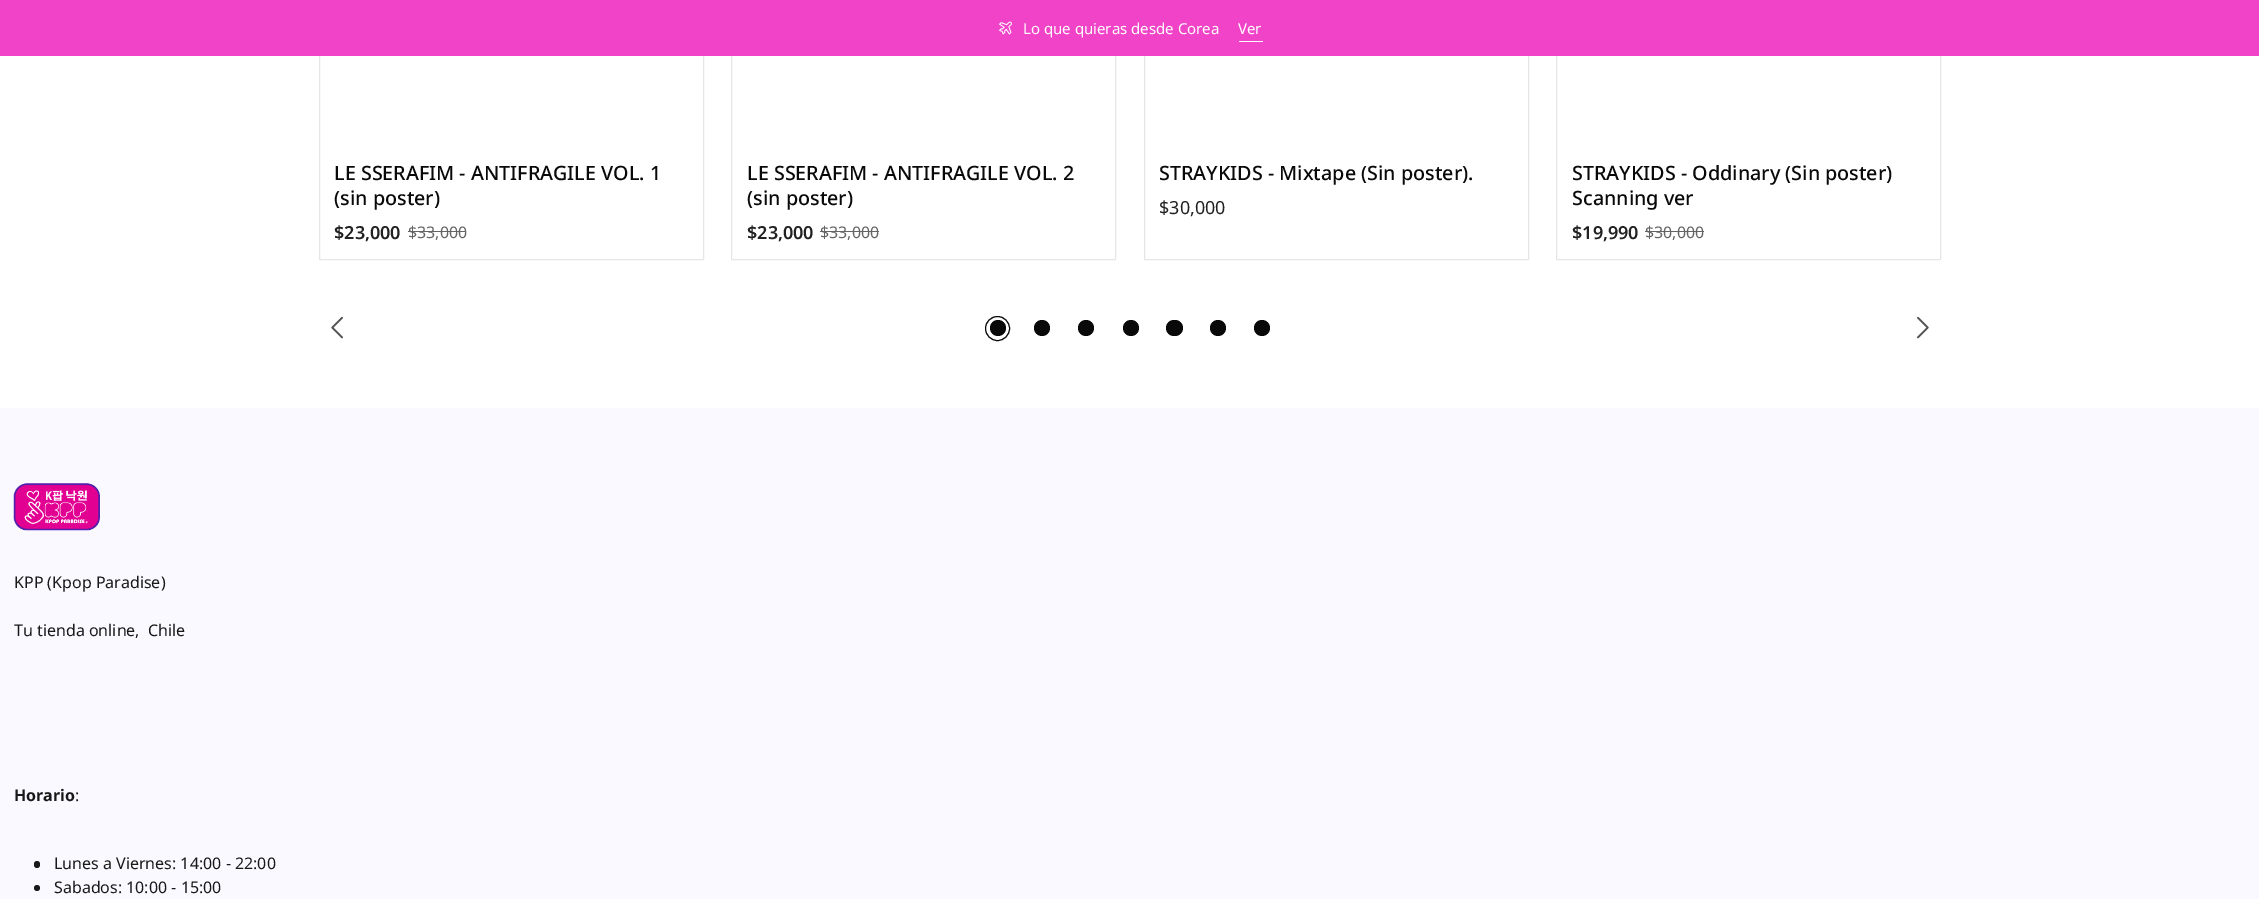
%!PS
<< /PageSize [2259 899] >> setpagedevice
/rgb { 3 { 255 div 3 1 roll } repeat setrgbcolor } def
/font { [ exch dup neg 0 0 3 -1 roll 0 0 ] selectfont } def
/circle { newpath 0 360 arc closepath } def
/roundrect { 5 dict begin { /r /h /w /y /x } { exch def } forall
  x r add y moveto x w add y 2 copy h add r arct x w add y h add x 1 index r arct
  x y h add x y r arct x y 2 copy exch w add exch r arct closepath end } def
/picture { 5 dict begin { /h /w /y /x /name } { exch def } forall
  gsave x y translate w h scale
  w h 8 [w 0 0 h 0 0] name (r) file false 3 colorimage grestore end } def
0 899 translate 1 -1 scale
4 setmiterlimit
255 255 255 rgb
0 0 2259 899 rectfill
230 230 230 rgb
319.5 -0.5 384 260 rectstroke
731.5 -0.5 384 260 rectstroke
1144.5 -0.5 384 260 rectstroke
1556.5 -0.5 384 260 rectstroke
240 67 199 rgb
0 0 2259 56 rectfill
(img/1.rgb) 999 21 13 14 picture
[
  [1239 41 24 1 255 255 255]
  [408 231 58 1 100 100 100]
  [820 231 59 1 100 100 100]
  [1645 231 59 1 100 100 100]
] { aload pop rgb rectfill } forall
(img/2.rgb) 331 316 12 23 picture
9 9 9 rgb
998 328 8 circle fill
997.5 328.5 12 circle stroke
1042 328 8 circle fill
1086 328 8 circle fill
1131 328 8 circle fill
1166 320 17 16 8 roundrect fill
1218 328 8 circle fill
1262 328 8 circle fill
(img/3.rgb) 1917 316 12 23 picture
249 249 255 rgb
0 408 2259 491 rectfill
(img/4.rgb) 13 483 87 48 picture
25 25 25 rgb
34 861 6 7 3 roundrect fill
37 888 3 circle fill
/NotoSans-Regular 15 font
255 255 255 rgb
1023 34 moveto (Lo que quieras desde Corea) show
1238 34 moveto (Ver) show
/NotoSans-Medium 19.75 font
9 9 9 rgb
334 180 moveto (LE SSERAFIM - ANTIFRAGILE VOL. 1) show
334 205 moveto (\(sin poster\)) show
/NotoSans-SemiBold 18 font
34 34 34 rgb
334 239 moveto ($23,000) show
/NotoSans-Regular 16 font
100 100 100 rgb
408 238 moveto ($33,000) show
/NotoSans-Medium 19.75 font
9 9 9 rgb
747 180 moveto (LE SSERAFIM - ANTIFRAGILE VOL. 2) show
747 205 moveto (\(sin poster\)) show
/NotoSans-SemiBold 18 font
34 34 34 rgb
747 239 moveto ($23,000) show
/NotoSans-Regular 16 font
100 100 100 rgb
820 238 moveto ($33,000) show
/NotoSans-Medium 19.75 font
9 9 9 rgb
1159 180 moveto (STRAYKIDS - Mixtape \(Sin poster\).) show
/NotoSans-Regular 18 font
34 34 34 rgb
1159 214 moveto ($30,000) show
/NotoSans-Medium 19.75 font
9 9 9 rgb
1572 180 moveto (STRAYKIDS - Oddinary \(Sin poster\)) show
1572 205 moveto (Scanning ver) show
/NotoSans-SemiBold 18 font
34 34 34 rgb
1572 239 moveto ($19,990) show
/NotoSans-Regular 16 font
100 100 100 rgb
1645 238 moveto ($30,000) show
25 25 25 rgb
14 588 moveto (KPP \(Kpop Paradise\)) show
14 636 moveto (Tu tienda online,  Chile) show
/NotoSans-Bold 16 font
14 801 moveto (Horario) show
/NotoSans-Regular 16 font
[
  [(:) 75 801]
  [(Lunes a Viernes: 14:00 - 22:00) 54 869]
  [(Sabados: 10:00 - 15:00) 54 893]
] { aload pop moveto show } forall
showpage
